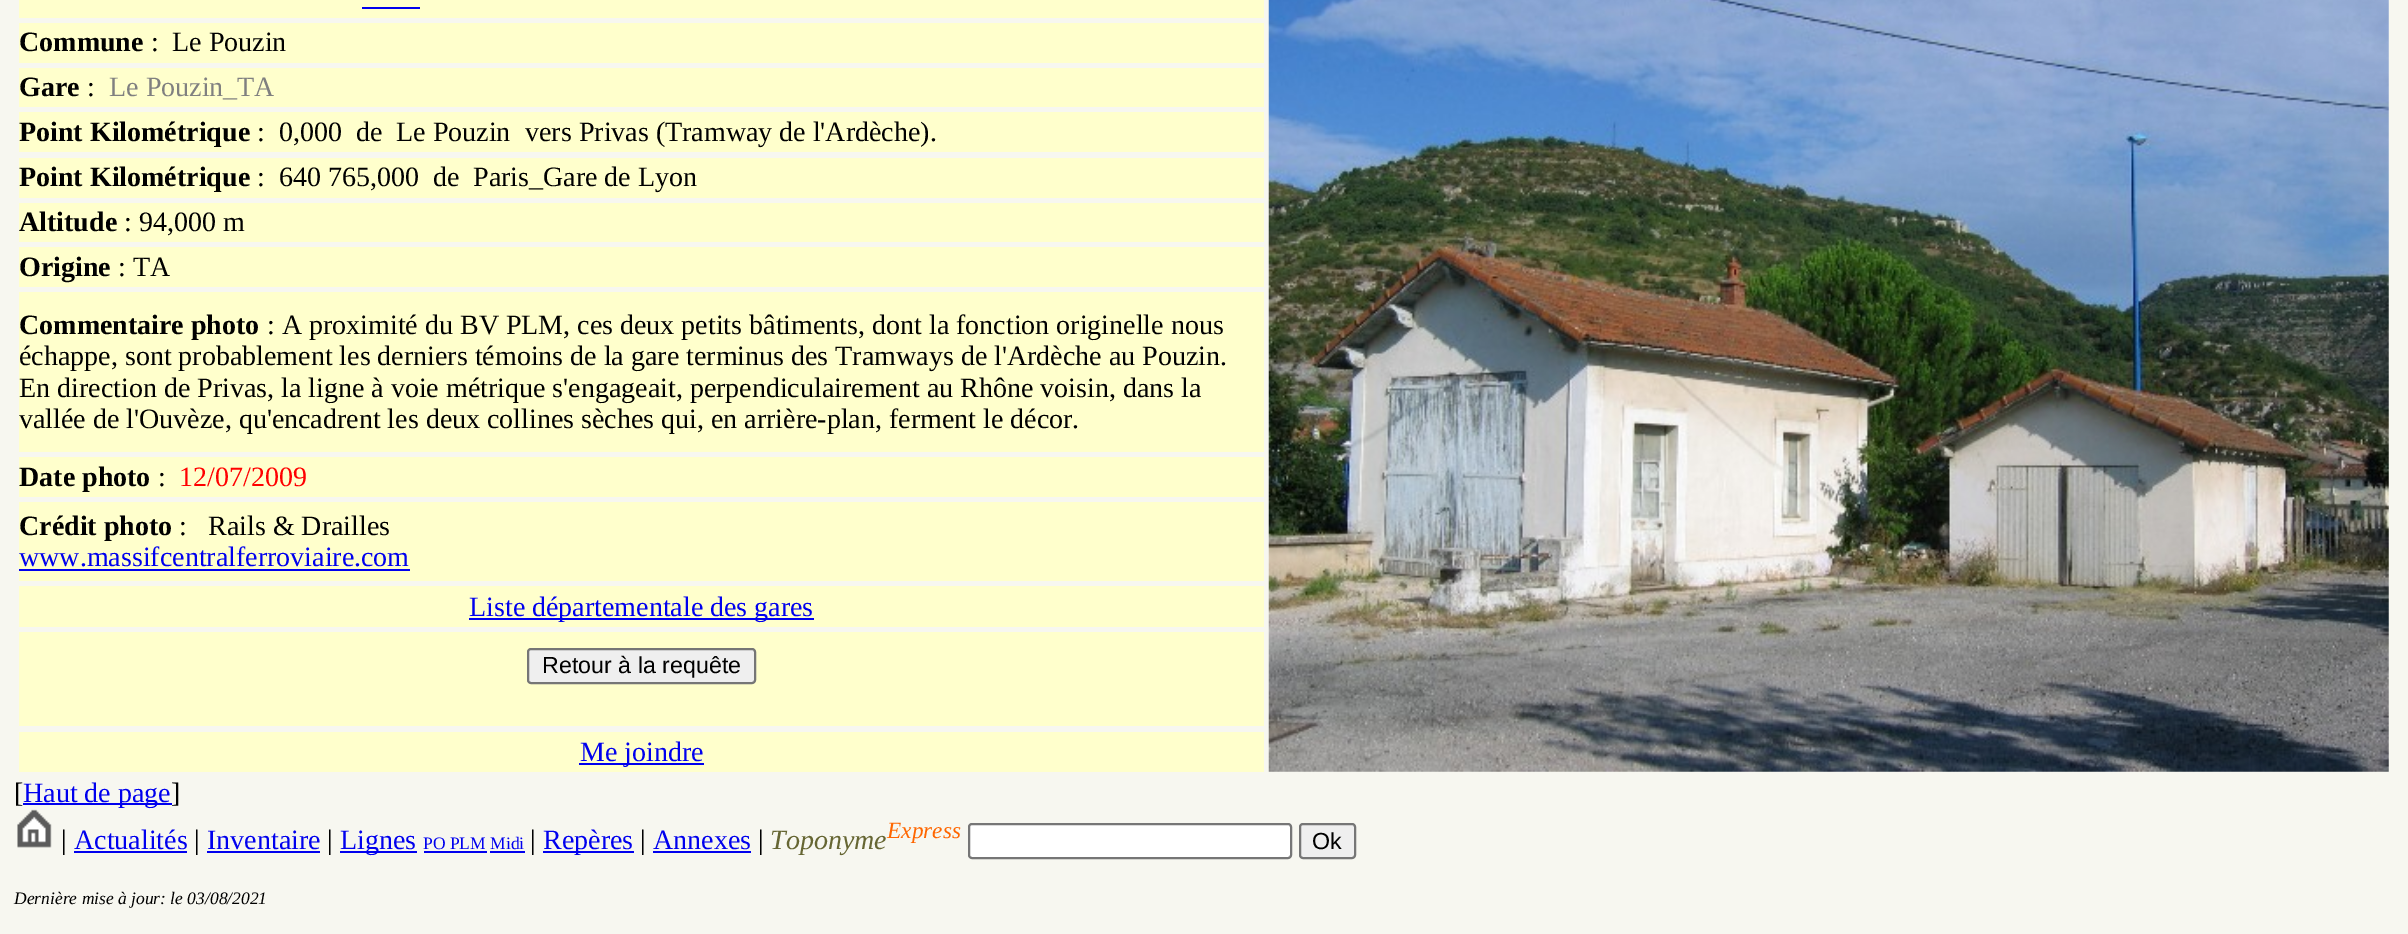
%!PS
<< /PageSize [2408 934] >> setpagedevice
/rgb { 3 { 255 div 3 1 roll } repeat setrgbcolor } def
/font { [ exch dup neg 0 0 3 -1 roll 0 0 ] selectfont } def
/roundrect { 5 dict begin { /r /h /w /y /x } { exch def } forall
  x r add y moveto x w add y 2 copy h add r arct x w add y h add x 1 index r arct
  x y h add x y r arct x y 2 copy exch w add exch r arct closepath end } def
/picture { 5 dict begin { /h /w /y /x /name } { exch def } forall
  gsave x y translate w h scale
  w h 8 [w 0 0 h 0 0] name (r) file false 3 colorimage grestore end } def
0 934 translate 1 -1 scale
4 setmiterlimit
247 247 240 rgb
0 0 2408 934 rectfill
255 255 204 rgb
19 0 1245 18 rectfill
0 0 238 rgb
362 7 58 2 rectfill
(img/1.rgb) 1268 0 1121 772 picture
[
  [19 23 1245 40 255 255 204]
  [19 68 1245 39 255 255 204]
  [19 112 1245 40 255 255 204]
  [19 158 1245 40 255 255 204]
  [19 203 1245 39 255 255 204]
  [19 247 1245 40 255 255 204]
  [19 292 1245 160 255 255 204]
  [19 457 1245 40 255 255 204]
  [19 502 1245 79 255 255 204]
  [19 569 391 2 0 0 238]
  [19 586 1245 41 255 255 204]
  [469 618 345 2 0 0 238]
  [19 632 1245 94 255 255 204]
] { aload pop rgb rectfill } forall
239 239 239 rgb
528 649 227 34 3 roundrect gsave fill grestore
118 118 118 rgb
2 setlinewidth
stroke
[
  [19 732 1245 40 255 255 204]
  [579 763 125 2 0 0 238]
  [23 803 149 2 0 0 238]
] { aload pop rgb rectfill } forall
(img/2.rgb) 17 809 35 39 picture
[
  [74 851 113 2 0 0 238]
  [207 851 113 2 0 0 238]
  [340 851 77 2 0 0 238]
  [424 851 63 2 0 0 238]
  [490 851 35 2 0 0 238]
  [543 851 91 2 0 0 238]
  [653 851 98 2 0 0 238]
] { aload pop rgb rectfill } forall
255 255 255 rgb
969 824 322 34 3 roundrect gsave fill grestore
118 118 118 rgb
stroke
239 239 239 rgb
1300 824 55 34 3 roundrect gsave fill grestore
118 118 118 rgb
stroke
/LiberationSerif-Bold 28 font
0 0 0 rgb
19 51 moveto (Commune) show
/LiberationSerif-Regular 28 font
151 51 moveto (:) show
172 51 moveto (Le Pouzin) show
/LiberationSerif-Bold 28 font
19 96 moveto (Gare) show
/LiberationSerif-Regular 28 font
87 96 moveto (:) show
128 128 128 rgb
109 96 moveto (Le Pouzin_TA) show
/LiberationSerif-Bold 28 font
0 0 0 rgb
19 141 moveto (Point Kilométrique) show
/LiberationSerif-Regular 28 font
[
  [(:) 257 141]
  [(0,000) 279 141]
  [(de) 356 141]
  [(Le Pouzin) 396 141]
  [(vers Privas \(Tramway de l'Ardèche\).) 525 141]
] { aload pop moveto show } forall
/LiberationSerif-Bold 28 font
19 186 moveto (Point Kilométrique) show
/LiberationSerif-Regular 28 font
[
  [(:) 257 186]
  [(640 765,000) 279 186]
  [(de) 433 186]
  [(Paris_Gare de Lyon) 473 186]
] { aload pop moveto show } forall
/LiberationSerif-Bold 28 font
19 231 moveto (Altitude) show
/LiberationSerif-Regular 28 font
124 231 moveto (: 94,000 m) show
/LiberationSerif-Bold 28 font
19 276 moveto (Origine) show
/LiberationSerif-Regular 28 font
118 276 moveto (: TA) show
/LiberationSerif-Bold 28 font
19 334 moveto (Commentaire photo) show
/LiberationSerif-Regular 28 font
[
  [(: A proximité du BV PLM, ces deux petits bâtiments, dont la fonction originelle nous) 267 334]
  [(échappe, sont probablement les derniers témoins de la gare terminus des Tramways de l'Ardèche au Pouzin.) 19 365]
  [(En direction de Privas, la ligne à voie métrique s'engageait, perpendiculairement au Rhône voisin, dans la) 19 397]
  [(vallée de l'Ouvèze, qu'encadrent les deux collines sèches qui, en arrière-plan, ferment le décor.) 19 428]
] { aload pop moveto show } forall
/LiberationSerif-Bold 28 font
19 486 moveto (Date photo) show
/LiberationSerif-Regular 28 font
158 486 moveto (:) show
255 0 0 rgb
179 486 moveto (12/07/2009) show
/LiberationSerif-Bold 28 font
0 0 0 rgb
19 535 moveto (Crédit photo) show
/LiberationSerif-Regular 28 font
179 535 moveto (:) show
208 535 moveto (Rails & Drailles) show
0 0 238 rgb
19 566 moveto (www.massifcentralferroviaire.com) show
469 616 moveto (Liste départementale des gares) show
/LiberationSans-Regular 23.25 font
0 0 0 rgb
542 673 moveto (Retour à la requête) show
/LiberationSerif-Regular 28 font
0 0 238 rgb
580 761 moveto (Me joindre) show
0 0 0 rgb
14 802 moveto ([) show
0 0 238 rgb
23 802 moveto (Haut de page) show
0 0 0 rgb
171 802 moveto (]) show
61 849 moveto (|) show
0 0 238 rgb
74 849 moveto (Actualités) show
0 0 0 rgb
194 849 moveto (|) show
0 0 238 rgb
207 849 moveto (Inventaire) show
0 0 0 rgb
327 849 moveto (|) show
0 0 238 rgb
340 849 moveto (Lignes) show
/LiberationSerif-Regular 17.5 font
423 849 moveto (PO PLM Midi) show
/LiberationSerif-Regular 28 font
0 0 0 rgb
530 849 moveto (|) show
0 0 238 rgb
543 849 moveto (Repères) show
0 0 0 rgb
640 849 moveto (|) show
0 0 238 rgb
653 849 moveto (Annexes) show
0 0 0 rgb
758 849 moveto (|) show
/LiberationSerif-Italic 28 font
102 102 51 rgb
770 849 moveto (Toponyme) show
/LiberationSerif-Italic 23.25 font
255 102 0 rgb
887 838 moveto (Express) show
/LiberationSans-Regular 23.25 font
0 0 0 rgb
1312 849 moveto (Ok) show
/LiberationSerif-Italic 17.5 font
14 904 moveto (Dernière mise à jour: le 03/08/2021) show
showpage
